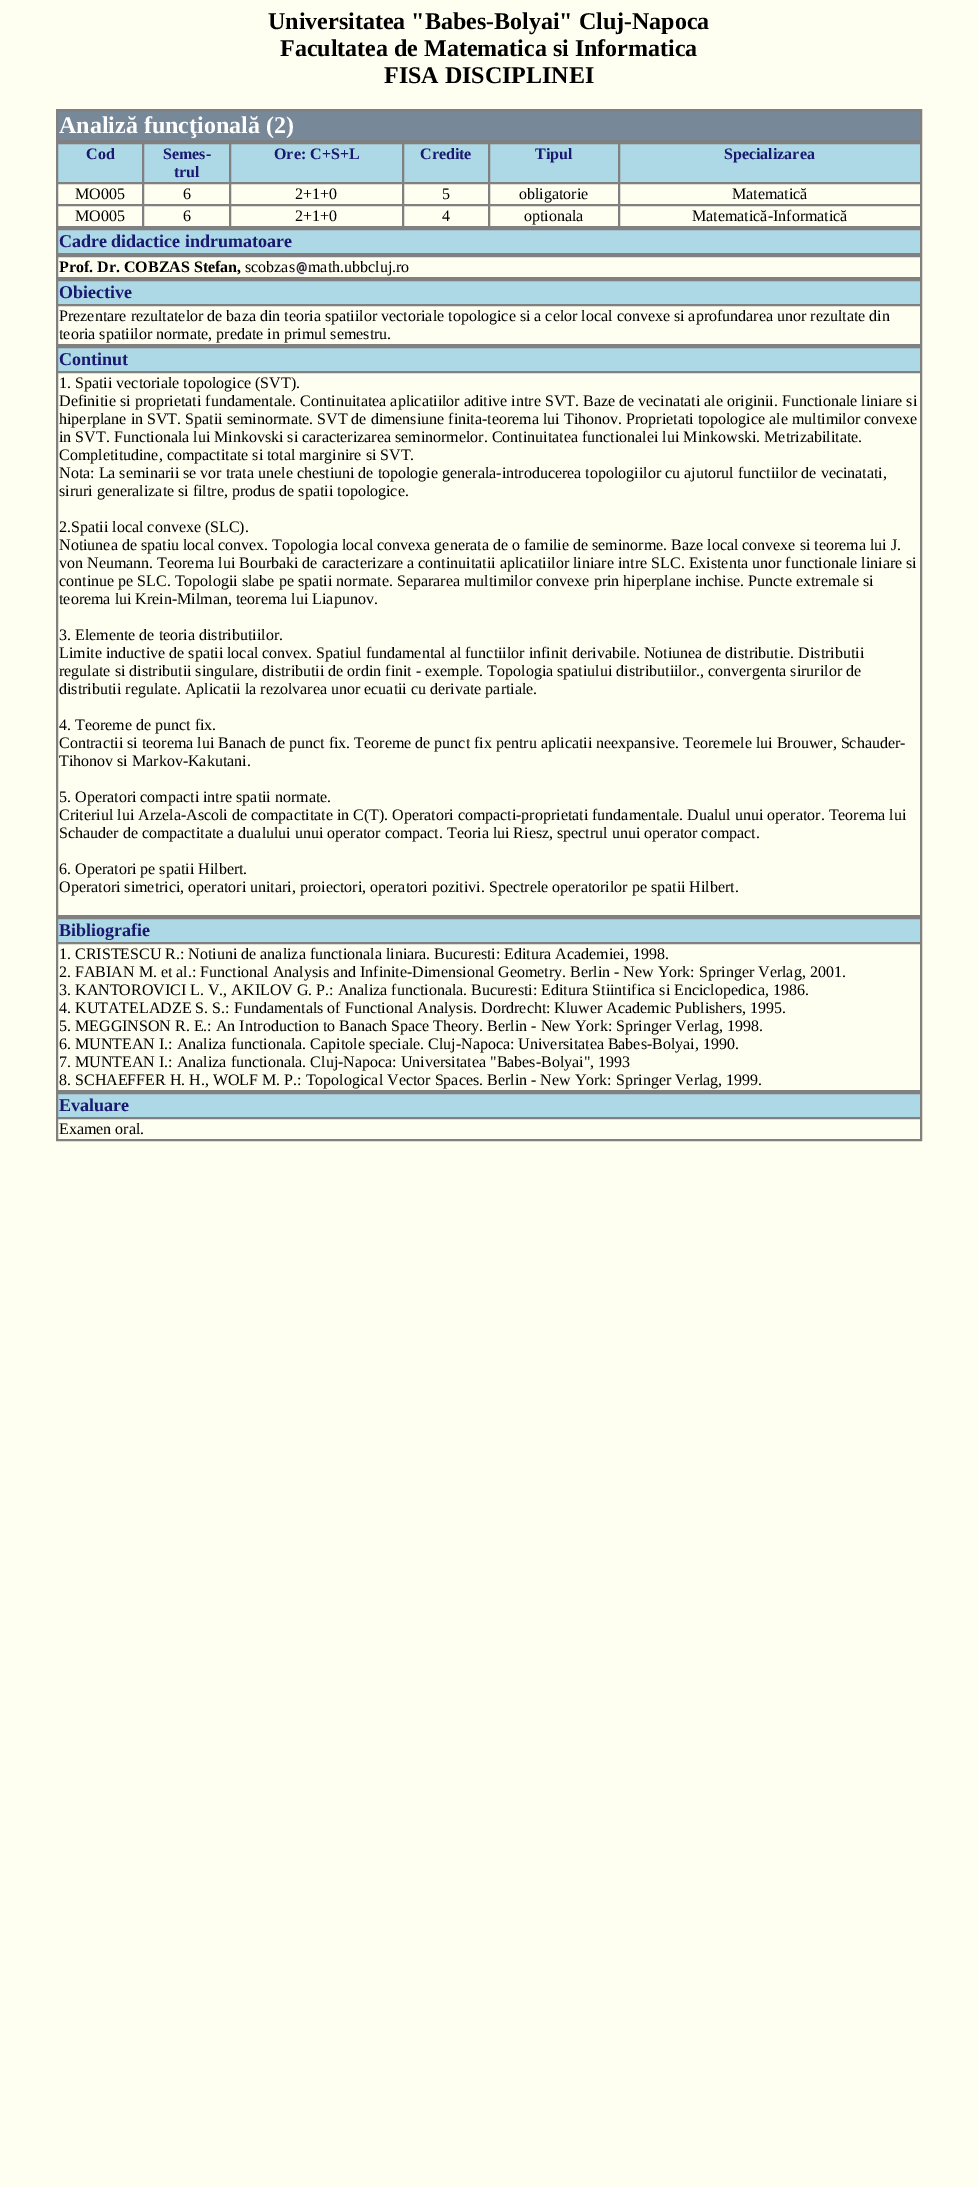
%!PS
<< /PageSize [978 2188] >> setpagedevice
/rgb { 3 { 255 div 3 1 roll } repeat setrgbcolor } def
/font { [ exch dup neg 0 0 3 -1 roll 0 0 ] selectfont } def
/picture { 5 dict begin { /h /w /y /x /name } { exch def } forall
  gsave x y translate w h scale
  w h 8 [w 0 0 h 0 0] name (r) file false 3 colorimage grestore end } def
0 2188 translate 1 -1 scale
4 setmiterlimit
255 255 241 rgb
0 0 978 2188 rectfill
128 128 128 rgb
56.5 109.5 865 32 rectstroke
119 136 153 rgb
57.5 110.5 moveto 920.5 110.5 lineto 920.5 140.5 lineto 57.5 140.5 lineto closepath gsave fill grestore
128 128 128 rgb
stroke
56.5 142.5 865 85 rectstroke
173 216 230 rgb
57.5 143.5 moveto 142.5 143.5 lineto 142.5 182.5 lineto 57.5 182.5 lineto closepath gsave fill grestore
128 128 128 rgb
stroke
173 216 230 rgb
143.5 143.5 moveto 229.5 143.5 lineto 229.5 182.5 lineto 143.5 182.5 lineto closepath gsave fill grestore
128 128 128 rgb
stroke
173 216 230 rgb
230.5 143.5 moveto 402.5 143.5 lineto 402.5 182.5 lineto 230.5 182.5 lineto closepath gsave fill grestore
128 128 128 rgb
stroke
173 216 230 rgb
403.5 143.5 moveto 488.5 143.5 lineto 488.5 182.5 lineto 403.5 182.5 lineto closepath gsave fill grestore
128 128 128 rgb
stroke
173 216 230 rgb
489.5 143.5 moveto 618.5 143.5 lineto 618.5 182.5 lineto 489.5 182.5 lineto closepath gsave fill grestore
128 128 128 rgb
stroke
173 216 230 rgb
619.5 143.5 moveto 920.5 143.5 lineto 920.5 182.5 lineto 619.5 182.5 lineto closepath gsave fill grestore
128 128 128 rgb
stroke
57.5 183.5 85 21 rectstroke
143.5 183.5 86 21 rectstroke
230.5 183.5 172 21 rectstroke
403.5 183.5 85 21 rectstroke
489.5 183.5 129 21 rectstroke
619.5 183.5 301 21 rectstroke
57.5 205.5 85 21 rectstroke
143.5 205.5 86 21 rectstroke
230.5 205.5 172 21 rectstroke
403.5 205.5 85 21 rectstroke
489.5 205.5 129 21 rectstroke
619.5 205.5 301 21 rectstroke
56.5 228.5 865 26 rectstroke
173 216 230 rgb
57.5 229.5 moveto 920.5 229.5 lineto 920.5 253.5 lineto 57.5 253.5 lineto closepath gsave fill grestore
128 128 128 rgb
stroke
56.5 255.5 865 23 rectstroke
57.5 256.5 863 21 rectstroke
(img/1.rgb) 295 258 13 17 picture
56.5 279.5 865 66 rectstroke
173 216 230 rgb
57.5 280.5 moveto 920.5 280.5 lineto 920.5 304.5 lineto 57.5 304.5 lineto closepath gsave fill grestore
128 128 128 rgb
stroke
57.5 305.5 863 39 rectstroke
56.5 346.5 865 570 rectstroke
173 216 230 rgb
57.5 347.5 moveto 920.5 347.5 lineto 920.5 371.5 lineto 57.5 371.5 lineto closepath gsave fill grestore
128 128 128 rgb
stroke
57.5 372.5 863 543 rectstroke
56.5 917.5 865 174 rectstroke
173 216 230 rgb
57.5 918.5 moveto 920.5 918.5 lineto 920.5 942.5 lineto 57.5 942.5 lineto closepath gsave fill grestore
128 128 128 rgb
stroke
57.5 943.5 863 147 rectstroke
56.5 1092.5 865 48 rectstroke
173 216 230 rgb
57.5 1093.5 moveto 920.5 1093.5 lineto 920.5 1117.5 lineto 57.5 1117.5 lineto closepath gsave fill grestore
128 128 128 rgb
stroke
57.5 1118.5 863 21 rectstroke
/LiberationSerif-Bold 24 font
0 0 1 rgb
[
  [(Universitatea "Babes-Bolyai" Cluj-Napoca) 268 29]
  [(Facultatea de Matematica si Informatica) 280 56]
  [(FISA DISCIPLINEI) 384 83]
] { aload pop moveto show } forall
255 255 255 rgb
59 133 moveto (Analiză funcţională \(2\)) show
/LiberationSerif-Bold 16 font
25 25 112 rgb
[
  [(Cod) 86 159]
  [(Semes-) 163 159]
  [(trul) 174 177]
  [(Ore: C+S+L) 274 159]
  [(Credite) 420 159]
  [(Tipul) 535 159]
  [(Specializarea) 724 159]
] { aload pop moveto show } forall
/LiberationSerif-Regular 16 font
0 0 1 rgb
[
  [(MO005) 75 199]
  [(6) 183 199]
  [(2+1+0) 295 199]
  [(5) 442 199]
  [(obligatorie) 519 199]
  [(Matematică) 732 199]
  [(MO005) 75 221]
  [(6) 183 221]
  [(2+1+0) 295 221]
  [(4) 442 221]
  [(optionala) 524 221]
  [(Matematică-Informatică) 692 221]
] { aload pop moveto show } forall
/LiberationSerif-Bold 18 font
25 25 112 rgb
59 247 moveto (Cadre didactice indrumatoare) show
/LiberationSerif-Bold 16 font
0 0 1 rgb
59 272 moveto (Prof. Dr. COBZAS Stefan,) show
/LiberationSerif-Regular 16 font
245 272 moveto (scobzas) show
308 272 moveto (math.ubbcluj.ro) show
/LiberationSerif-Bold 18 font
25 25 112 rgb
59 298 moveto (Obiective) show
/LiberationSerif-Regular 16 font
0 0 1 rgb
59 321 moveto (Prezentare rezultatelor de baza din teoria spatiilor vectoriale topologice si a celor local convexe si aprofundarea unor rezultate din) show
59 339 moveto (teoria spatiilor normate, predate in primul semestru.) show
/LiberationSerif-Bold 18 font
25 25 112 rgb
59 365 moveto (Continut) show
/LiberationSerif-Regular 16 font
0 0 1 rgb
[
  [(1. Spatii vectoriale topologice \(SVT\).) 59 388]
  [(Definitie si proprietati fundamentale. Continuitatea aplicatiilor aditive intre SVT. Baze de vecinatati ale originii. Functionale liniare si) 59 406]
  [(hiperplane in SVT. Spatii seminormate. SVT de dimensiune finita-teorema lui Tihonov. Proprietati topologice ale multimilor convexe) 59 424]
  [(in SVT. Functionala lui Minkovski si caracterizarea seminormelor. Continuitatea functionalei lui Minkowski. Metrizabilitate.) 59 442]
  [(Completitudine, compactitate si total marginire si SVT.) 59 460]
  [(Nota: La seminarii se vor trata unele chestiuni de topologie generala-introducerea topologiilor cu ajutorul functiilor de vecinatati,) 59 478]
  [(siruri generalizate si filtre, produs de spatii topologice.) 59 496]
  [(2.Spatii local convexe \(SLC\).) 59 532]
  [(Notiunea de spatiu local convex. Topologia local convexa generata de o familie de seminorme. Baze local convexe si teorema lui J.) 59 550]
  [(von Neumann. Teorema lui Bourbaki de caracterizare a continuitatii aplicatiilor liniare intre SLC. Existenta unor functionale liniare si) 59 568]
  [(continue pe SLC. Topologii slabe pe spatii normate. Separarea multimilor convexe prin hiperplane inchise. Puncte extremale si) 59 586]
  [(teorema lui Krein-Milman, teorema lui Liapunov.) 59 604]
  [(3. Elemente de teoria distributiilor.) 59 640]
  [(Limite inductive de spatii local convex. Spatiul fundamental al functiilor infinit derivabile. Notiunea de distributie. Distributii) 59 658]
  [(regulate si distributii singulare, distributii de ordin finit - exemple. Topologia spatiului distributiilor., convergenta sirurilor de) 59 676]
  [(distributii regulate. Aplicatii la rezolvarea unor ecuatii cu derivate partiale.) 59 694]
  [(4. Teoreme de punct fix.) 59 730]
  [(Contractii si teorema lui Banach de punct fix. Teoreme de punct fix pentru aplicatii neexpansive. Teoremele lui Brouwer, Schauder-) 59 748]
  [(Tihonov si Markov-Kakutani.) 59 766]
  [(5. Operatori compacti intre spatii normate.) 59 802]
  [(Criteriul lui Arzela-Ascoli de compactitate in C\(T\). Operatori compacti-proprietati fundamentale. Dualul unui operator. Teorema lui) 59 820]
  [(Schauder de compactitate a dualului unui operator compact. Teoria lui Riesz, spectrul unui operator compact.) 59 838]
  [(6. Operatori pe spatii Hilbert.) 59 874]
  [(Operatori simetrici, operatori unitari, proiectori, operatori pozitivi. Spectrele operatorilor pe spatii Hilbert.) 59 892]
] { aload pop moveto show } forall
/LiberationSerif-Bold 18 font
25 25 112 rgb
59 936 moveto (Bibliografie) show
/LiberationSerif-Regular 16 font
0 0 1 rgb
[
  [(1. CRISTESCU R.: Notiuni de analiza functionala liniara. Bucuresti: Editura Academiei, 1998.) 59 959]
  [(2. FABIAN M. et al.: Functional Analysis and Infinite-Dimensional Geometry. Berlin - New York: Springer Verlag, 2001.) 59 977]
  [(3. KANTOROVICI L. V., AKILOV G. P.: Analiza functionala. Bucuresti: Editura Stiintifica si Enciclopedica, 1986.) 59 995]
  [(4. KUTATELADZE S. S.: Fundamentals of Functional Analysis. Dordrecht: Kluwer Academic Publishers, 1995.) 59 1013]
  [(5. MEGGINSON R. E.: An Introduction to Banach Space Theory. Berlin - New York: Springer Verlag, 1998.) 59 1031]
  [(6. MUNTEAN I.: Analiza functionala. Capitole speciale. Cluj-Napoca: Universitatea Babes-Bolyai, 1990.) 59 1049]
  [(7. MUNTEAN I.: Analiza functionala. Cluj-Napoca: Universitatea "Babes-Bolyai", 1993) 59 1067]
  [(8. SCHAEFFER H. H., WOLF M. P.: Topological Vector Spaces. Berlin - New York: Springer Verlag, 1999.) 59 1085]
] { aload pop moveto show } forall
/LiberationSerif-Bold 18 font
25 25 112 rgb
59 1111 moveto (Evaluare) show
/LiberationSerif-Regular 16 font
0 0 1 rgb
59 1134 moveto (Examen oral.) show
showpage
